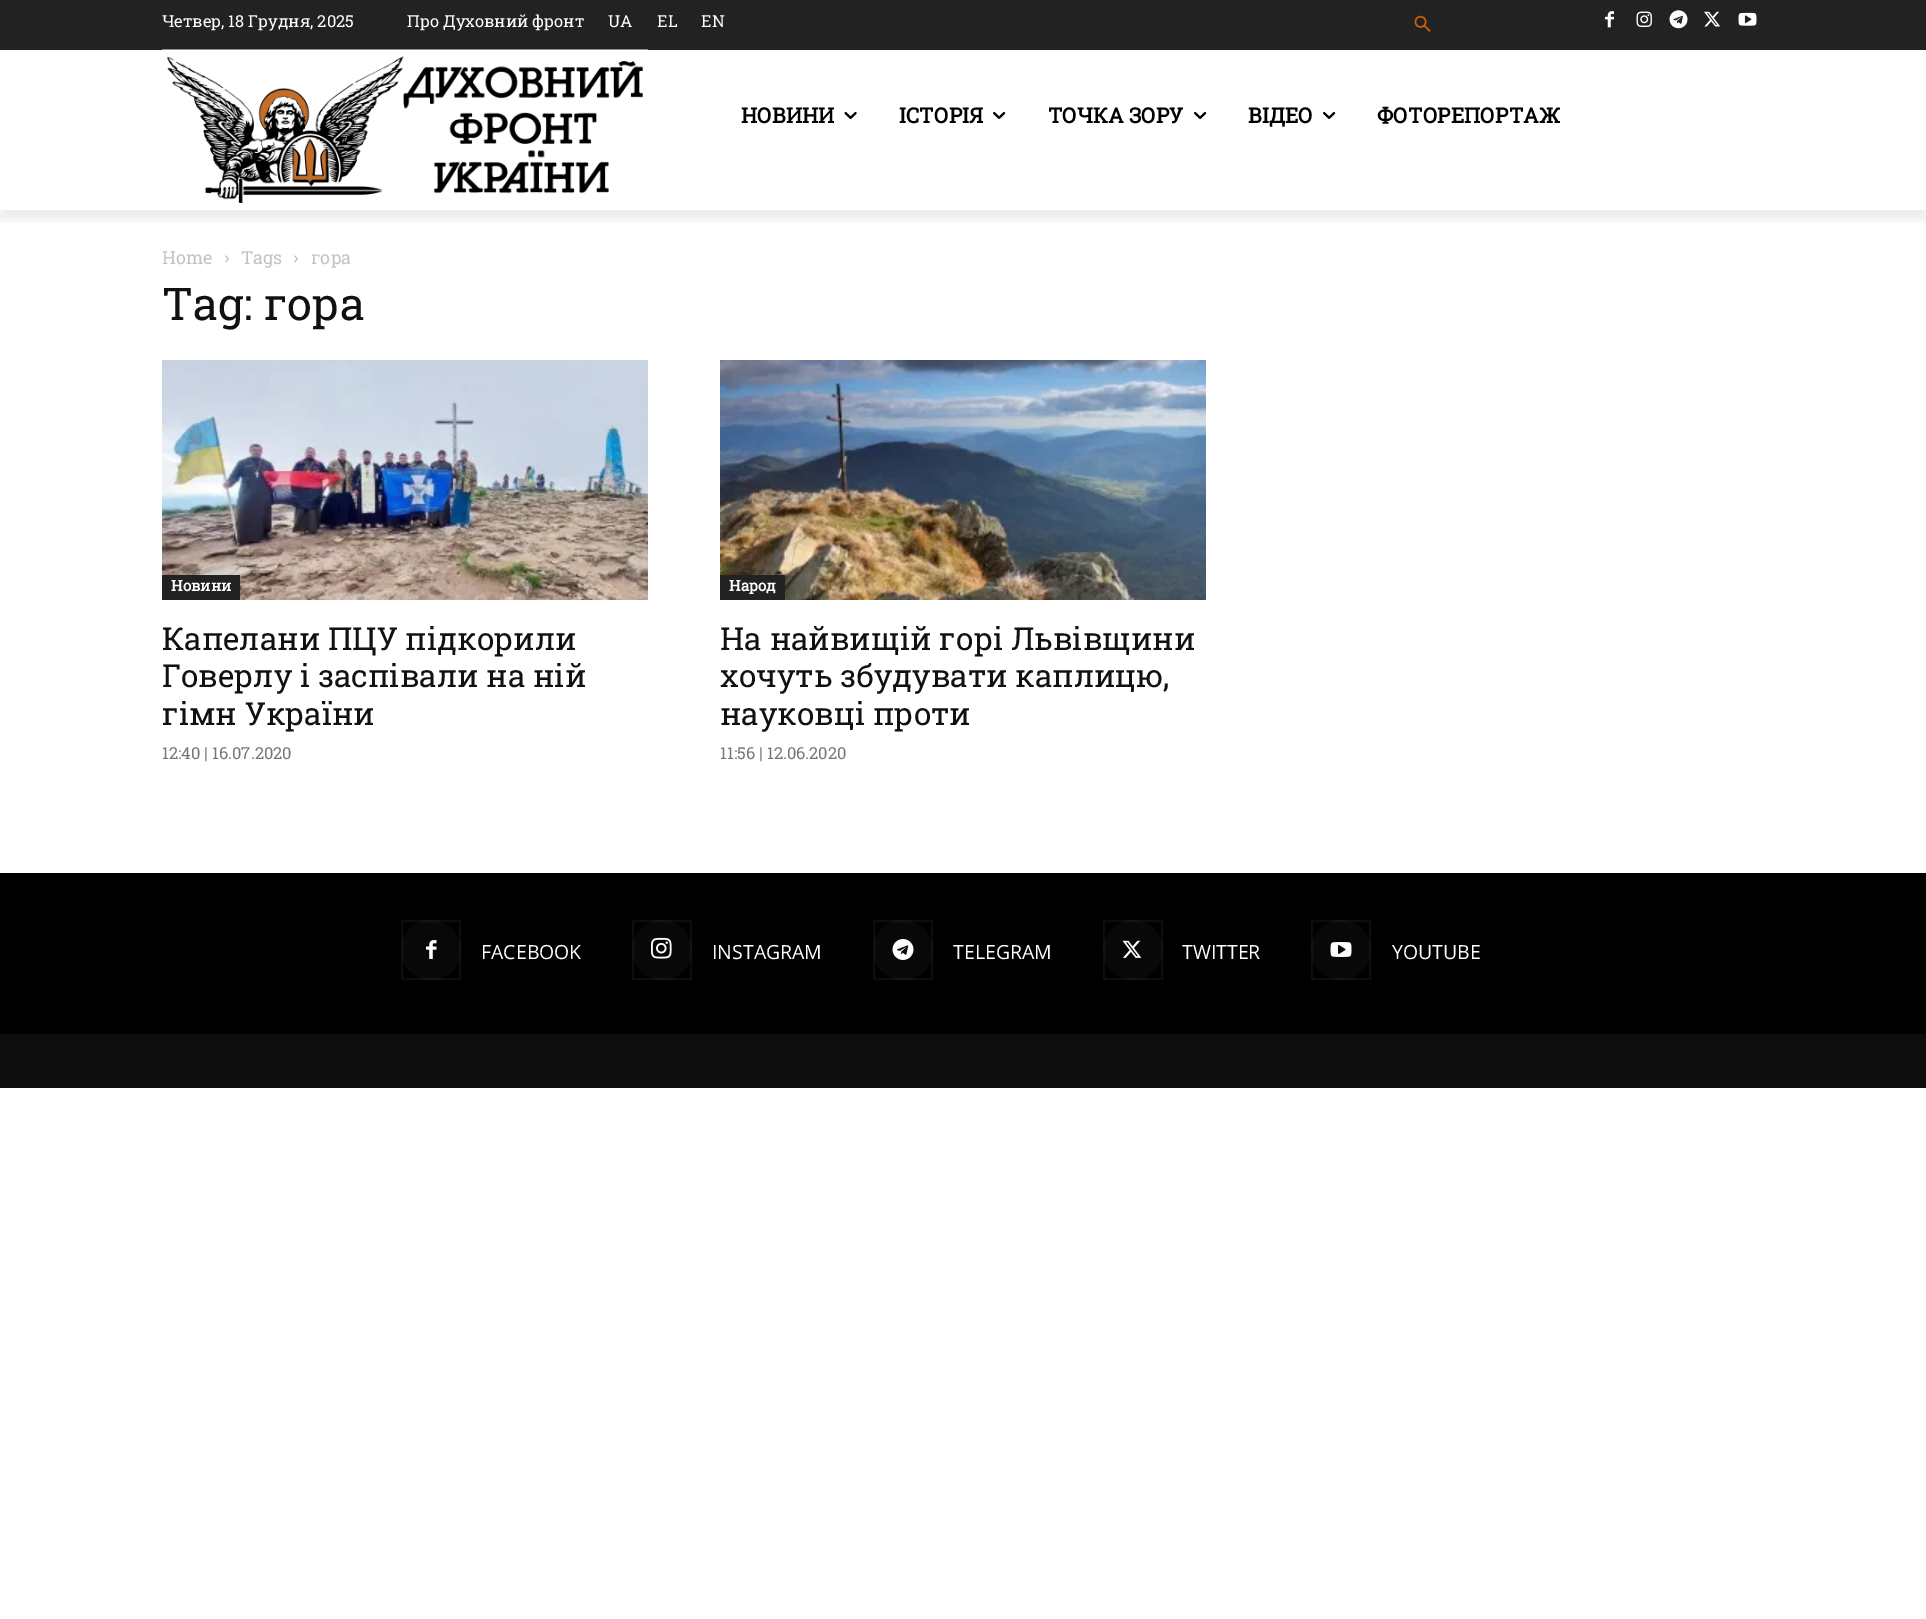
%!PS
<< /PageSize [1926 1619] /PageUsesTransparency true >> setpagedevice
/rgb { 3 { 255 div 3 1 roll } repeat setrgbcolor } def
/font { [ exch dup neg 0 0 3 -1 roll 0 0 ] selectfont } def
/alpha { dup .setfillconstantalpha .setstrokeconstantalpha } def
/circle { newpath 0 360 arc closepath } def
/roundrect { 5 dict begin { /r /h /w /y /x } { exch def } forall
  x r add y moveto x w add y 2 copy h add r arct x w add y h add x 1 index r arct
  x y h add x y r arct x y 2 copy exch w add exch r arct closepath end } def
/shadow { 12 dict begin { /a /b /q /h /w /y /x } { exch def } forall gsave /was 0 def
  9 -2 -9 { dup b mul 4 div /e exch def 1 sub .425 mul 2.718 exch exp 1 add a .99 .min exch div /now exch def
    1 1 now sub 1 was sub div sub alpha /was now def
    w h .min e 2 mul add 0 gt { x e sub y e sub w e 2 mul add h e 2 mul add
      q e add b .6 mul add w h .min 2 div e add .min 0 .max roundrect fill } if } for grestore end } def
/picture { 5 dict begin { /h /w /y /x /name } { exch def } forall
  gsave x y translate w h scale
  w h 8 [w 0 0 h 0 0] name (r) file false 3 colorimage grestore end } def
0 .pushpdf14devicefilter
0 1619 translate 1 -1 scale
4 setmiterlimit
255 255 255 rgb
0 0 1926 1619 rectfill
34 34 34 rgb
0 0 1926 50 rectfill
(img/1.rgb) 1414 15 17 17 picture
(img/2.rgb) 1605 11 9 17 picture
(img/3.rgb) 1636 11 16 16 picture
(img/4.rgb) 1669 10 19 19 picture
(img/5.rgb) 1704 11 16 16 picture
(img/6.rgb) 1738 12 19 14 picture
(img/7.rgb) 162 49 486 154 picture
gsave
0 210 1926 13 rectclip
0 0 0 rgb
0 59 1926 160 0 6 0.08 shadow
grestore
(img/8.rgb) 844 111 13 8 picture
(img/9.rgb) 993 111 13 8 picture
(img/9.rgb) 1194 111 13 8 picture
(img/9.rgb) 1323 111 13 8 picture
(img/10.rgb) 225 255 4 8 picture
(img/10.rgb) 294 255 4 8 picture
(img/11.rgb) 162 360 486 240 picture
162 575 78 25 rectfill
(img/12.rgb) 720 360 486 240 picture
720 575 65 25 rectfill
0 0 0 rgb
0 873 1926 161 rectfill
8 8 8 rgb
431 950 30 circle fill
(img/13.rgb) 426 940 11 19 picture
0.05 alpha
255 255 255 rgb
2 setlinewidth
402 921 58 58 rectstroke
1 alpha
8 8 8 rgb
662 950 30 circle fill
(img/14.rgb) 651 937 21 22 picture
0.05 alpha
255 255 255 rgb
633 921 58 58 rectstroke
1 alpha
8 8 8 rgb
903 950 30 circle fill
(img/15.rgb) 892 939 22 21 picture
0.05 alpha
255 255 255 rgb
874 921 58 58 rectstroke
1 alpha
8 8 8 rgb
1133 950 30 circle fill
(img/16.rgb) 1122 940 20 18 picture
0.05 alpha
255 255 255 rgb
1104 921 58 58 rectstroke
1 alpha
8 8 8 rgb
1341 950 30 circle fill
(img/17.rgb) 1330 942 22 15 picture
0.05 alpha
255 255 255 rgb
1312 921 58 58 rectstroke
1 alpha
13 13 13 rgb
0 1034 1926 54 rectfill
/RobotoSlab-Regular 16.5 font
255 255 255 rgb
[
  [(Четвер, 18 Грудня, 2025) 162 27]
  [(Про Духовний фронт) 407 27]
  [(UA) 608 27]
  [(EL) 657 27]
  [(EN) 701 27]
] { aload pop moveto show } forall
/RobotoSlab-Bold 21 font
0 0 0 rgb
[
  [(НОВИНИ) 741 123]
  [(ІСТОРІЯ) 899 123]
  [(ТОЧКА ЗОРУ) 1048 123]
  [(ВІДЕО) 1248 123]
  [(ФОТОРЕПОРТАЖ) 1377 123]
] { aload pop moveto show } forall
/RobotoSlab-Regular 18 font
195 195 195 rgb
[
  [(Home) 162 264]
  [(Tags) 241 264]
  [(гора) 311 264]
] { aload pop moveto show } forall
/RobotoSlab-Regular 45 font
17 17 17 rgb
162 320 moveto (Tag: гора) show
/RobotoSlab-Bold 15 font
255 255 255 rgb
171 591 moveto (Новини) show
/RobotoSlab-Regular 31.5 font
17 17 17 rgb
[
  [(Капелани ПЦУ підкорили) 162 650]
  [(Говерлу і заспівали на ній) 162 687]
  [(гімн України) 162 725]
] { aload pop moveto show } forall
/RobotoSlab-Regular 16.5 font
118 118 118 rgb
162 759 moveto (12:40 | 16.07.2020) show
/RobotoSlab-Bold 15 font
255 255 255 rgb
729 591 moveto (Народ) show
/RobotoSlab-Regular 31.5 font
17 17 17 rgb
[
  [(На найвищій горі Львівщини) 720 650]
  [(хочуть збудувати каплицю,) 720 687]
  [(науковці проти) 720 725]
] { aload pop moveto show } forall
/RobotoSlab-Regular 16.5 font
118 118 118 rgb
720 759 moveto (11:56 | 12.06.2020) show
/OpenSans-Regular 19.5 font
255 255 255 rgb
[
  [(FACEBOOK) 481 959]
  [(INSTAGRAM) 712 959]
  [(TELEGRAM) 953 959]
  [(TWITTER) 1182 959]
  [(YOUTUBE) 1392 959]
] { aload pop moveto show } forall
.poppdf14devicefilter showpage
